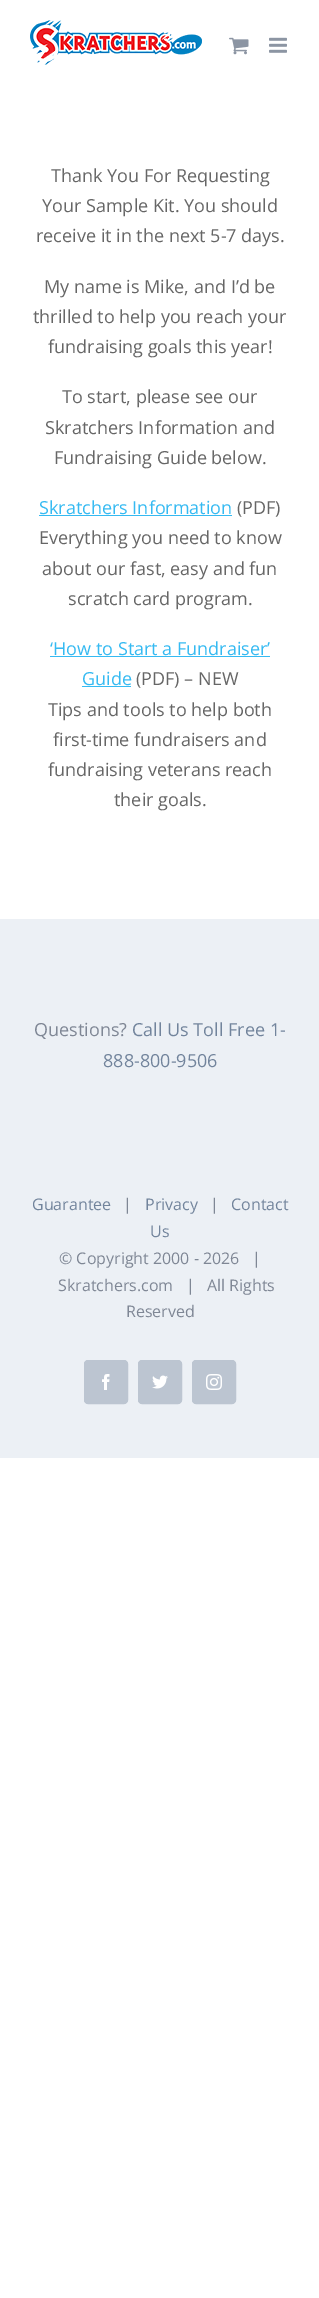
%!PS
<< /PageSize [319 2298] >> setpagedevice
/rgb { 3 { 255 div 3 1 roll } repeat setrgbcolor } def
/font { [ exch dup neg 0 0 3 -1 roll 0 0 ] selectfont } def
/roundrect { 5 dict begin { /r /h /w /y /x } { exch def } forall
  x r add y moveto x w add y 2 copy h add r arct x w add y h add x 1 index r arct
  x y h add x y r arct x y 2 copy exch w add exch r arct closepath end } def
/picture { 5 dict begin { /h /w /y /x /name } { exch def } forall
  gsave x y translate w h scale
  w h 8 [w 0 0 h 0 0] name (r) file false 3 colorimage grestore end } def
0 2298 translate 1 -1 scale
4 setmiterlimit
255 255 255 rgb
0 0 319 2298 rectfill
(img/1.rgb) 30 20 172 45 picture
(img/2.rgb) 229 37 20 18 picture
(img/3.rgb) 269 37 18 16 picture
[
  [39 515 193 1 53 186 242]
  [50 656 220 1 53 186 242]
  [82 686 49 1 53 186 242]
  [0 919 319 539 236 240 245]
] { aload pop rgb rectfill } forall
188 197 209 rgb
84.5 1360.5 43 43 3.5 roundrect gsave fill grestore
stroke
(img/4.rgb) 102 1374 8 16 picture
138.5 1360.5 43 43 3.5 roundrect gsave fill grestore
stroke
(img/5.rgb) 152 1375 16 14 picture
192.5 1360.5 43 43 3.5 roundrect gsave fill grestore
stroke
(img/6.rgb) 206 1374 16 16 picture
/OpenSans-Regular 18 font
102 102 102 rgb
[
  [(Thank You For Requesting) 51 182]
  [(Your Sample Kit. You should) 42 212]
  [(receive it in the next 5-7 days.) 36 242]
  [(My name is Mike, and I’d be) 44 293]
  [(thrilled to help you reach your) 33 323]
  [(fundraising goals this year!) 48 353]
  [(To start, please see our) 62 403]
  [(Skratchers Information and) 45 434]
  [(Fundraising Guide below.) 54 464]
] { aload pop moveto show } forall
53 186 242 rgb
39 514 moveto (Skratchers Information) show
102 102 102 rgb
[
  [(\(PDF\)) 237 514]
  [(Everything you need to know) 39 544]
  [(about our fast, easy and fun) 42 575]
  [(scratch card program.) 68 605]
] { aload pop moveto show } forall
53 186 242 rgb
50 655 moveto (‘How to Start a Fundraiser’) show
82 685 moveto (Guide) show
102 102 102 rgb
[
  [(\(PDF\) – NEW) 136 685]
  [(Tips and tools to help both) 48 716]
  [(first-time fundraisers and) 53 746]
  [(fundraising veterans reach) 48 776]
  [(their goals.) 114 806]
] { aload pop moveto show } forall
127 135 149 rgb
34 1036 moveto (Questions?) show
114 132 156 rgb
132 1036 moveto (Call Us Toll Free 1-) show
103 1067 moveto (888-800-9506) show
/OpenSans-Regular 16 font
32 1210 moveto (Guarantee) show
127 135 149 rgb
123 1210 moveto (|) show
114 132 156 rgb
145 1210 moveto (Privacy) show
127 135 149 rgb
210 1210 moveto (|) show
114 132 156 rgb
231 1210 moveto (Contact) show
150 1237 moveto (Us) show
127 135 149 rgb
[
  [(© Copyright 2000 - 2026   |) 59 1264]
  [(Skratchers.com   |   All Rights) 58 1291]
  [(Reserved) 126 1317]
] { aload pop moveto show } forall
showpage
